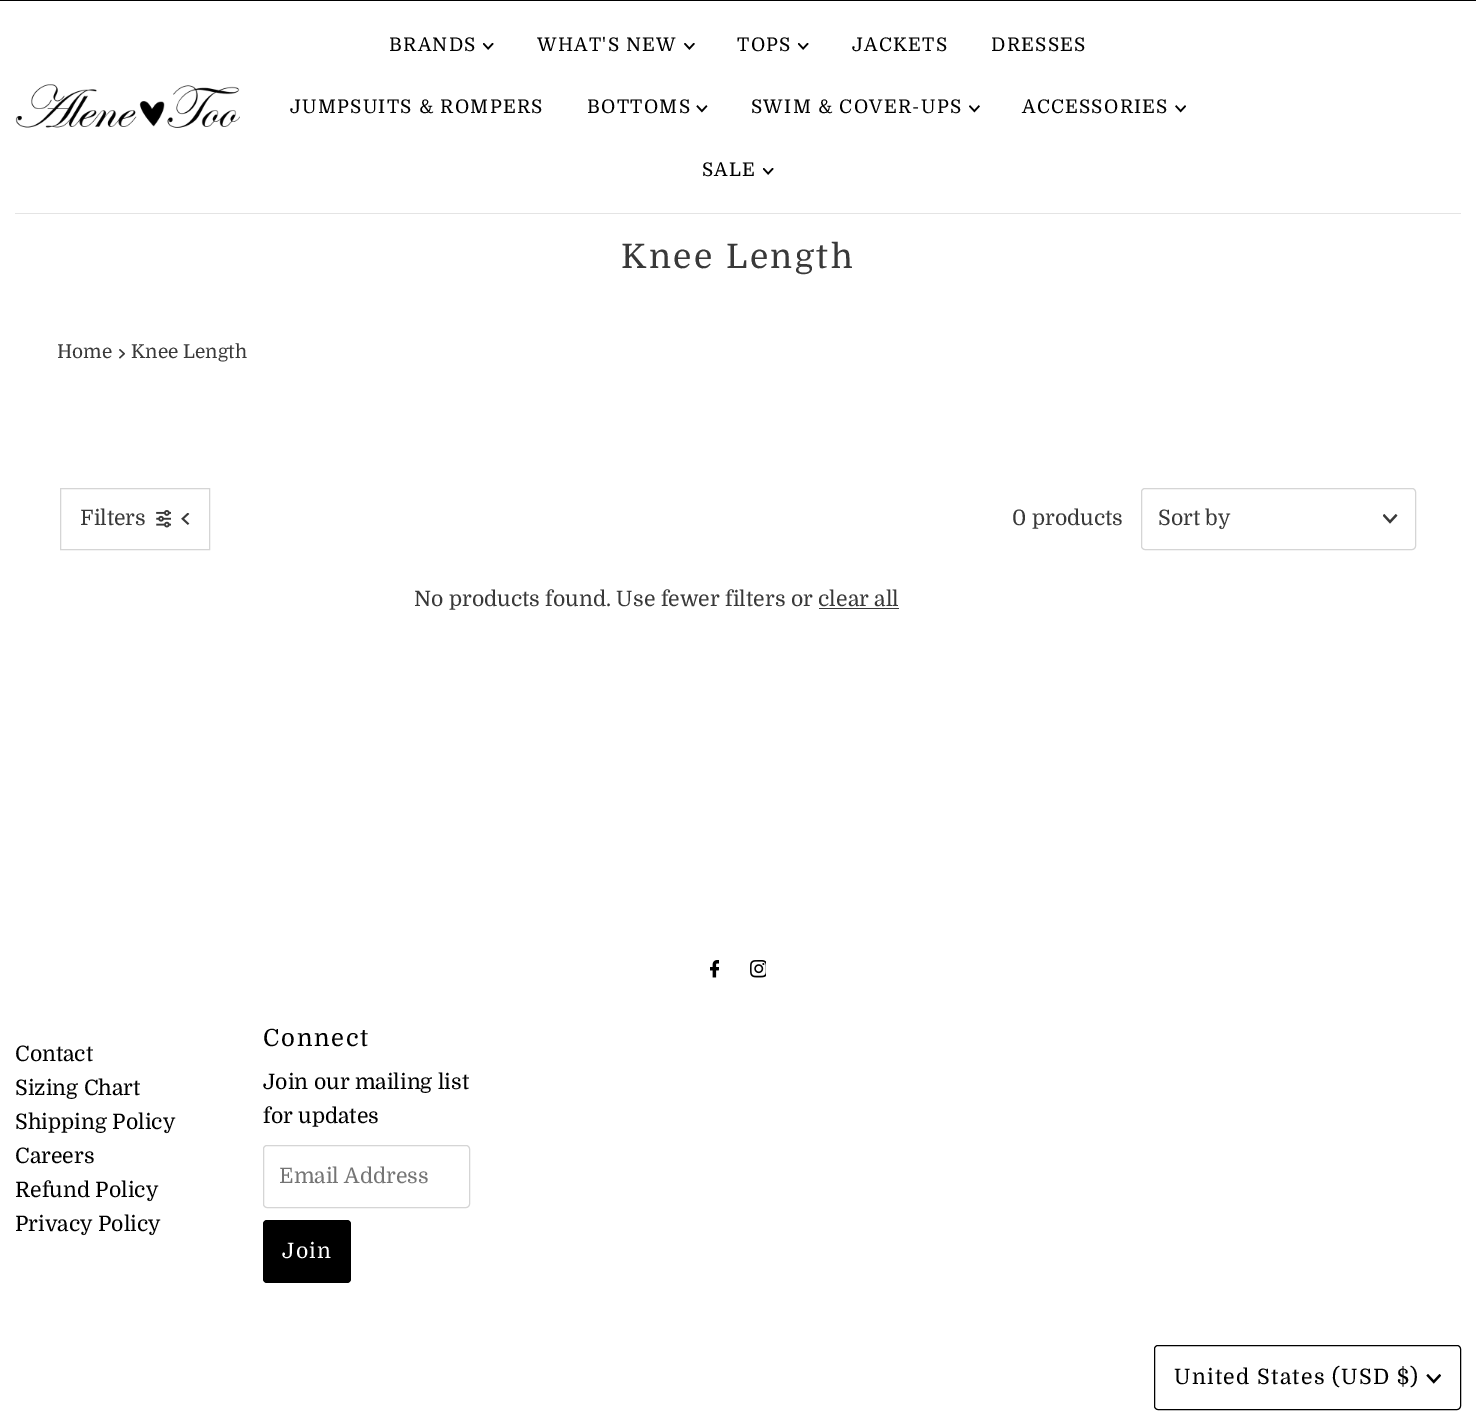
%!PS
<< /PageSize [1476 1414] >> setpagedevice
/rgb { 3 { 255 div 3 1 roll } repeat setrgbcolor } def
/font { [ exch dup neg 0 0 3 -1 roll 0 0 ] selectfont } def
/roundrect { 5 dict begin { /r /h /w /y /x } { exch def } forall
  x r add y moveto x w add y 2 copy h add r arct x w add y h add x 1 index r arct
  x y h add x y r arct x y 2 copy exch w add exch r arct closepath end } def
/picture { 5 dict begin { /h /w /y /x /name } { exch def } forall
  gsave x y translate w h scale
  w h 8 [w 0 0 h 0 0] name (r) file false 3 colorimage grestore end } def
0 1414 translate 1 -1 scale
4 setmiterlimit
255 255 255 rgb
0 0 1476 1414 rectfill
0 0 0 rgb
0 0 1476 1 rectfill
(img/1.rgb) 15 84 225 44 picture
(img/2.rgb) 483 43 11 7 picture
(img/3.rgb) 684 43 11 7 picture
(img/2.rgb) 798 43 11 7 picture
(img/4.rgb) 696 105 12 8 picture
(img/5.rgb) 969 105 11 8 picture
(img/6.rgb) 1175 105 11 8 picture
(img/2.rgb) 763 168 11 7 picture
228 228 228 rgb
15 213 1446 1 rectfill
(img/7.rgb) 119 349 6 10 picture
213 213 213 rgb
60.5 488.5 149 61 rectstroke
(img/8.rgb) 156 510 15 18 picture
(img/9.rgb) 181 513 9 12 picture
1141.5 488.5 274 61 3.5 roundrect stroke
(img/10.rgb) 1383 514 15 10 picture
57 57 57 rgb
819 608 80 1 rectfill
(img/11.rgb) 710 960 9 18 picture
(img/12.rgb) 750 960 16 18 picture
213 213 213 rgb
263.5 1145.5 206 62 3.5 roundrect stroke
0 0 0 rgb
263 1220 88 63 4 roundrect fill
1154.5 1345.5 306 64 3.5 roundrect stroke
(img/13.rgb) 1426 1374 15 10 picture
/Domine-Regular 18.75 font
389 51 moveto 1.25 0 (BRANDS) ashow
537 51 moveto 1.25 0 (WHAT'S NEW) ashow
737 51 moveto 1.25 0 (TOPS) ashow
852 51 moveto 1.25 0 (JACKETS) ashow
991 51 moveto 1.25 0 (DRESSES) ashow
290 113 moveto 1.25 0 (JUMPSUITS & ROMPERS) ashow
587 113 moveto 1.25 0 (BOTTOMS) ashow
751 113 moveto 1.25 0 (SWIM & COVER-UPS) ashow
1022 113 moveto 1.25 0 (ACCESSORIES) ashow
702 176 moveto 1.25 0 (SALE) ashow
/Domine-Regular 33.75 font
57 57 57 rgb
621 268 moveto 2.5 0 (Knee Length) ashow
/Domine-Regular 19 font
57 358 moveto (Home) show
131 358 moveto (Knee Length) show
/Domine-Regular 21.25 font
[
  [(Filters) 80 525]
  [(0 products) 1012 525]
  [(Sort by) 1158 525]
  [(No products found. Use fewer filters or clear all) 414 606]
] { aload pop moveto show } forall
0 0 0 rgb
[
  [(Contact) 15 1061]
  [(Sizing Chart) 15 1095]
  [(Shipping Policy) 15 1129]
  [(Careers) 15 1163]
  [(Refund Policy) 15 1197]
  [(Privacy Policy) 15 1231]
] { aload pop moveto show } forall
/Domine-Regular 23.75 font
263 1046 moveto 1.75 0 (Connect) ashow
/Domine-Regular 21.25 font
263 1089 moveto (Join our mailing list) show
263 1123 moveto (for updates) show
117 117 117 rgb
279 1183 moveto (Email Address) show
255 255 255 rgb
282 1258 moveto 1.25 0 (Join) ashow
0 0 0 rgb
1174 1384 moveto 1.25 0 (United States \(USD $\)) ashow
showpage
